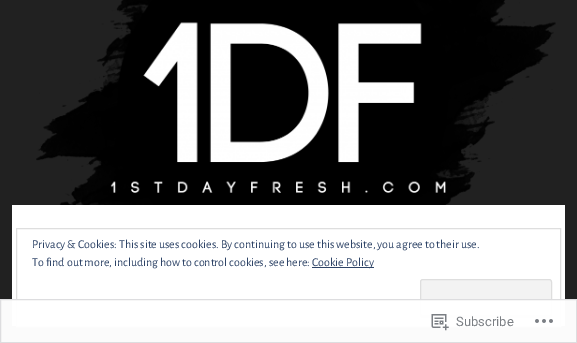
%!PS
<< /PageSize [577 343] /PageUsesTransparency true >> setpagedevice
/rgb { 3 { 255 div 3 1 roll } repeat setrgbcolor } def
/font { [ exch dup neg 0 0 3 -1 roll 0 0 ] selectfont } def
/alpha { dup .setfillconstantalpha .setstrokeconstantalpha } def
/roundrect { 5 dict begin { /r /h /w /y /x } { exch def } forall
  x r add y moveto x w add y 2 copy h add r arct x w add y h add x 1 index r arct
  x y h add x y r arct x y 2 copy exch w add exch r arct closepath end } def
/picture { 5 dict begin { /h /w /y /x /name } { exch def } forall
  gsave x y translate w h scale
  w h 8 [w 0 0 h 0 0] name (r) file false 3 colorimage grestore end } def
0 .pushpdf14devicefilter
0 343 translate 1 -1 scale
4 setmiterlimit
33 33 33 rgb
0 0 577 343 rectfill
(img/1.rgb) 36 0 520 205 picture
255 255 255 rgb
12 205 553 121 rectfill
51 51 51 rgb
12 326 553 17 rectfill
222 222 222 rgb
16.5 228.5 544 98 rectstroke
46 68 103 rgb
312 267 62 1 rectfill
243 243 243 rgb
420 279 132 39 3 roundrect fill
219 219 219 rgb
421 313 moveto 421 315 lineto 421 316 422 317 423 317 curveto 549 317 lineto 550 317 551 316 551 315 curveto 551 313 lineto 551 314 550 315 549 315 curveto 423 315 lineto 422 315 421 314 421 313 curveto closepath fill
222 222 222 rgb
420.5 279.5 131 38 2.5 roundrect stroke
0.98 alpha
255 255 255 rgb
0 299 577 44 rectfill
220 220 222 rgb
0.5 299.5 576 43 rectstroke
1 alpha
(img/2.rgb) 431 314 18 17 picture
(img/3.rgb) 535 319 18 4 picture
/AlegreyaSans-Regular 12 font
46 68 103 rgb
[
  [(Privacy & Cookies: This site uses cookies. By continuing to use this website, you agree to their use.) 32 248]
  [(To find out more, including how to control cookies, see here:) 32 266]
  [(Cookie Policy) 312 266]
] { aload pop moveto show } forall
/Roboto-Regular 13 font
123 127 132 rgb
456 326 moveto (Subscribe) show
.poppdf14devicefilter showpage
